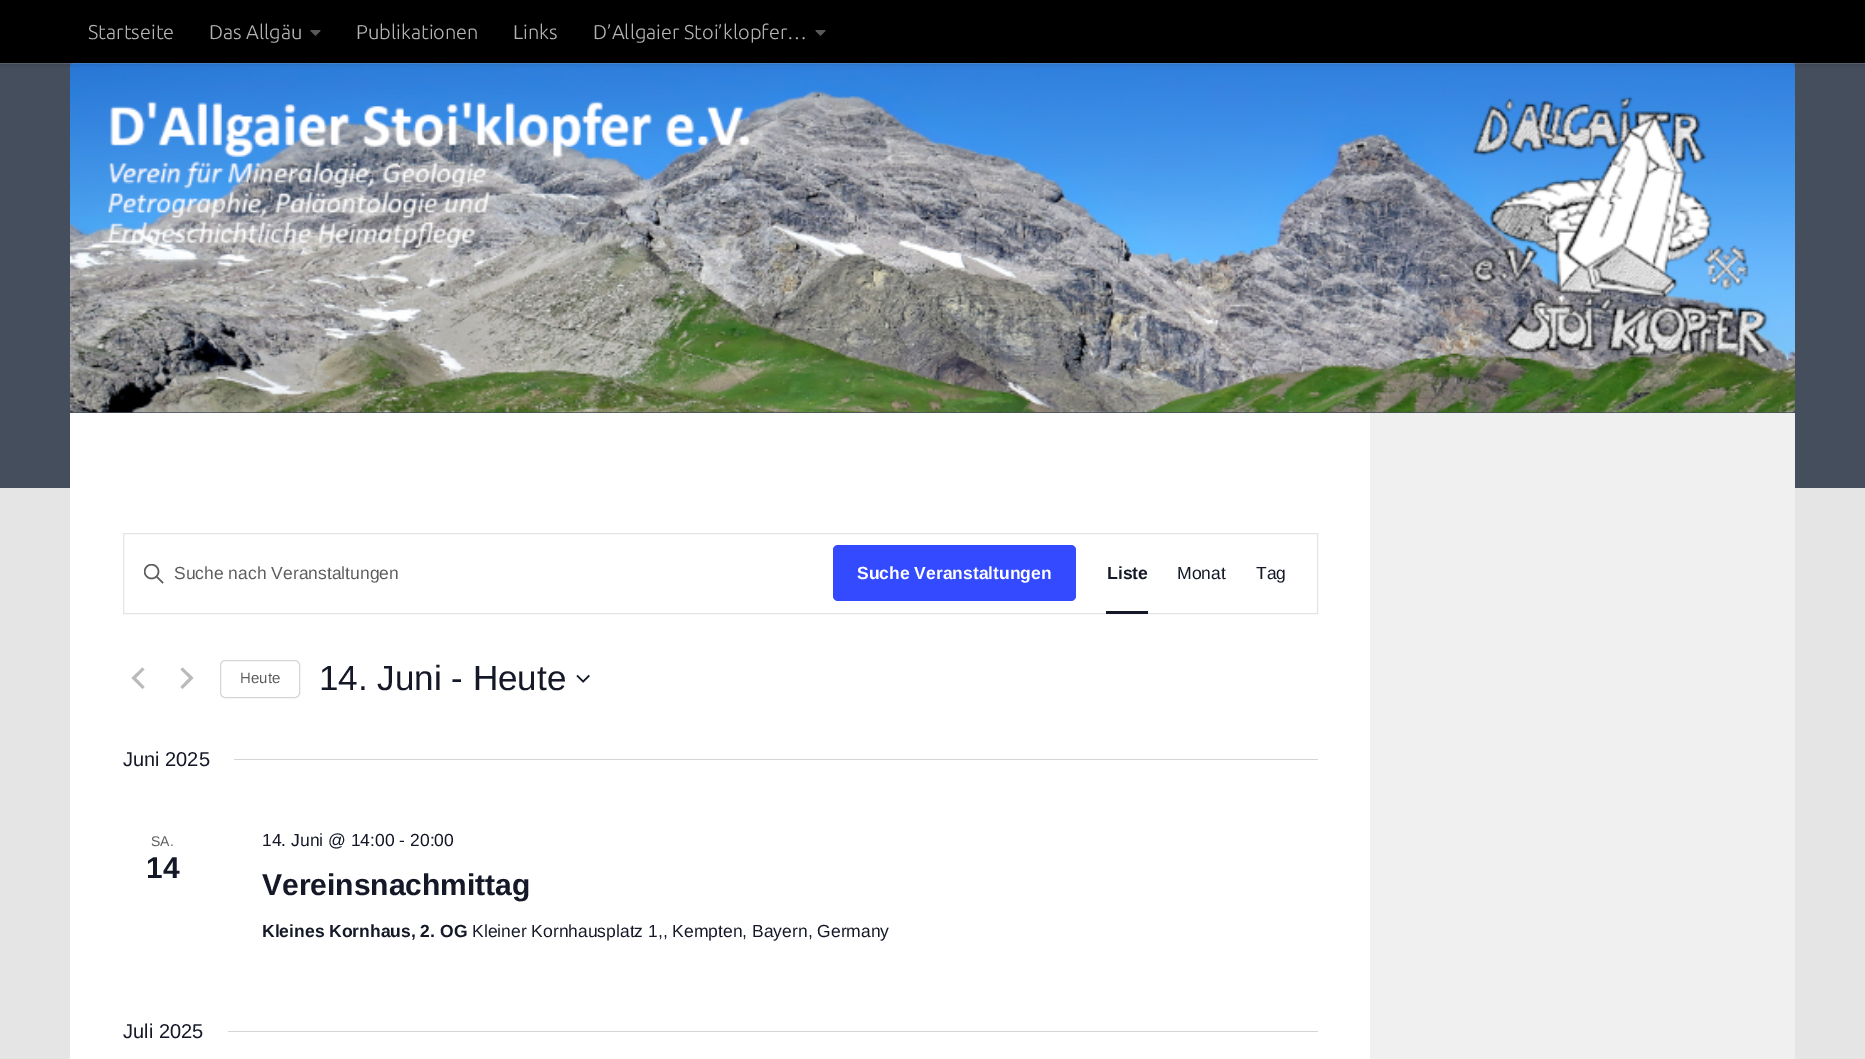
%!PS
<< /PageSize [1865 1059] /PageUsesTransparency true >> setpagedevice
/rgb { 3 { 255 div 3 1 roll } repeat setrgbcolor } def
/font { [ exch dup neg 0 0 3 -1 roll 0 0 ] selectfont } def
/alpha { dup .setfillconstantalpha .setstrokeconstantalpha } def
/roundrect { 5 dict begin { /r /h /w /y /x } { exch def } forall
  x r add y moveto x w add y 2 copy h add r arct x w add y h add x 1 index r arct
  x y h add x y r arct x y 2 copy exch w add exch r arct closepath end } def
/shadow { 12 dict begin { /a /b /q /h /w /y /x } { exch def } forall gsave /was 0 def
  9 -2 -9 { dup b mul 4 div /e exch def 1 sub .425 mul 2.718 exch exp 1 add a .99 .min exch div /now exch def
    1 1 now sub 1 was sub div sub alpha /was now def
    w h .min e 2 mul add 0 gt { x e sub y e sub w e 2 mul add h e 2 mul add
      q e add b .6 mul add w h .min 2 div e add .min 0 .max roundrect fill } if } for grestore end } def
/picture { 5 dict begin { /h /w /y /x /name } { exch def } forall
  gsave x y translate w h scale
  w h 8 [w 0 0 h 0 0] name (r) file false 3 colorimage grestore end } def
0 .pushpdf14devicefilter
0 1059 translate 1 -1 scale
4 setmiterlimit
229 229 229 rgb
0 0 1865 1059 rectfill
69 78 92 rgb
0 63 1865 425 rectfill
(img/2.rgb) 70 63 1725 350 picture
0.15 alpha
255 255 255 rgb
0 63 1865 1 rectfill
1 alpha
0 0 0 rgb
0 0 1865 63 0 3 0.2 shadow
0 0 1865 63 rectfill
(img/1.rgb) 310 30 11 6 picture
(img/1.rgb) 815 30 11 6 picture
255 255 255 rgb
70 413 1300 646 rectfill
228 228 228 rgb
123.5 533.5 1194 80 rectstroke
(img/3.rgb) 144 564 20 20 picture
51 74 255 rgb
833 545 243 56 5 roundrect fill
20 24 39 rgb
1106 611 42 3 rectfill
186 186 186 rgb
144.5 687 moveto 142.5 689 lineto 131.5 678 lineto 142.5 667.5 lineto 144.5 669.5 lineto 136 678 lineto closepath 180.5 669.5 moveto 182.5 667.5 lineto 193.5 678 lineto 182.5 689 lineto 180.5 687 lineto 189 678 lineto closepath fill
213 213 213 rgb
220.5 660.5 79 37 4.5 roundrect stroke
(img/4.rgb) 576 674 14 9 picture
[
  [234 759 1084 1 213 213 213]
  [228 1031 1090 1 213 213 213]
  [1370 413 425 646 240 240 240]
] { aload pop rgb rectfill } forall
/Ubuntu-Light 20 font
179 179 179 rgb
[
  [(Startseite) 88 39]
  [(Das Allgäu) 209 39]
  [(Publikationen) 356 39]
  [(Links) 513 39]
  [(D’Allgaier Stoi’klopfer…) 593 39]
] { aload pop moveto show } forall
/LiberationSans-Regular 17.5 font
93 93 93 rgb
174 579 moveto (Suche nach Veranstaltungen) show
/LiberationSans-Bold 17.5 font
255 255 255 rgb
857 579 moveto (Suche Veranstaltungen) show
20 24 39 rgb
1107 579 moveto (Liste) show
/LiberationSans-Regular 17.5 font
1177 579 moveto (Monat) show
1256 579 moveto (Tag) show
/LiberationSans-Regular 15 font
93 93 93 rgb
240 683 moveto (Heute) show
/LiberationSans-Regular 35 font
20 24 39 rgb
319 690 moveto (14. Juni - Heute) show
/LiberationSans-Regular 20 font
123 766 moveto (Juni 2025) show
/LiberationSans-Regular 14 font
93 93 93 rgb
151 846 moveto (SA.) show
/LiberationSans-Bold 30 font
20 24 39 rgb
146 878 moveto (14) show
/LiberationSans-Regular 17.5 font
262 846 moveto (14. Juni @ 14:00 - 20:00) show
/LiberationSans-Bold 30 font
262 895 moveto (Vereinsnachmittag) show
/LiberationSans-Bold 17.5 font
262 937 moveto (Kleines Kornhaus, 2. OG) show
/LiberationSans-Regular 17.5 font
472 937 moveto (Kleiner Kornhausplatz 1,, Kempten, Bayern, Germany) show
/LiberationSans-Regular 20 font
123 1038 moveto (Juli 2025) show
.poppdf14devicefilter showpage
